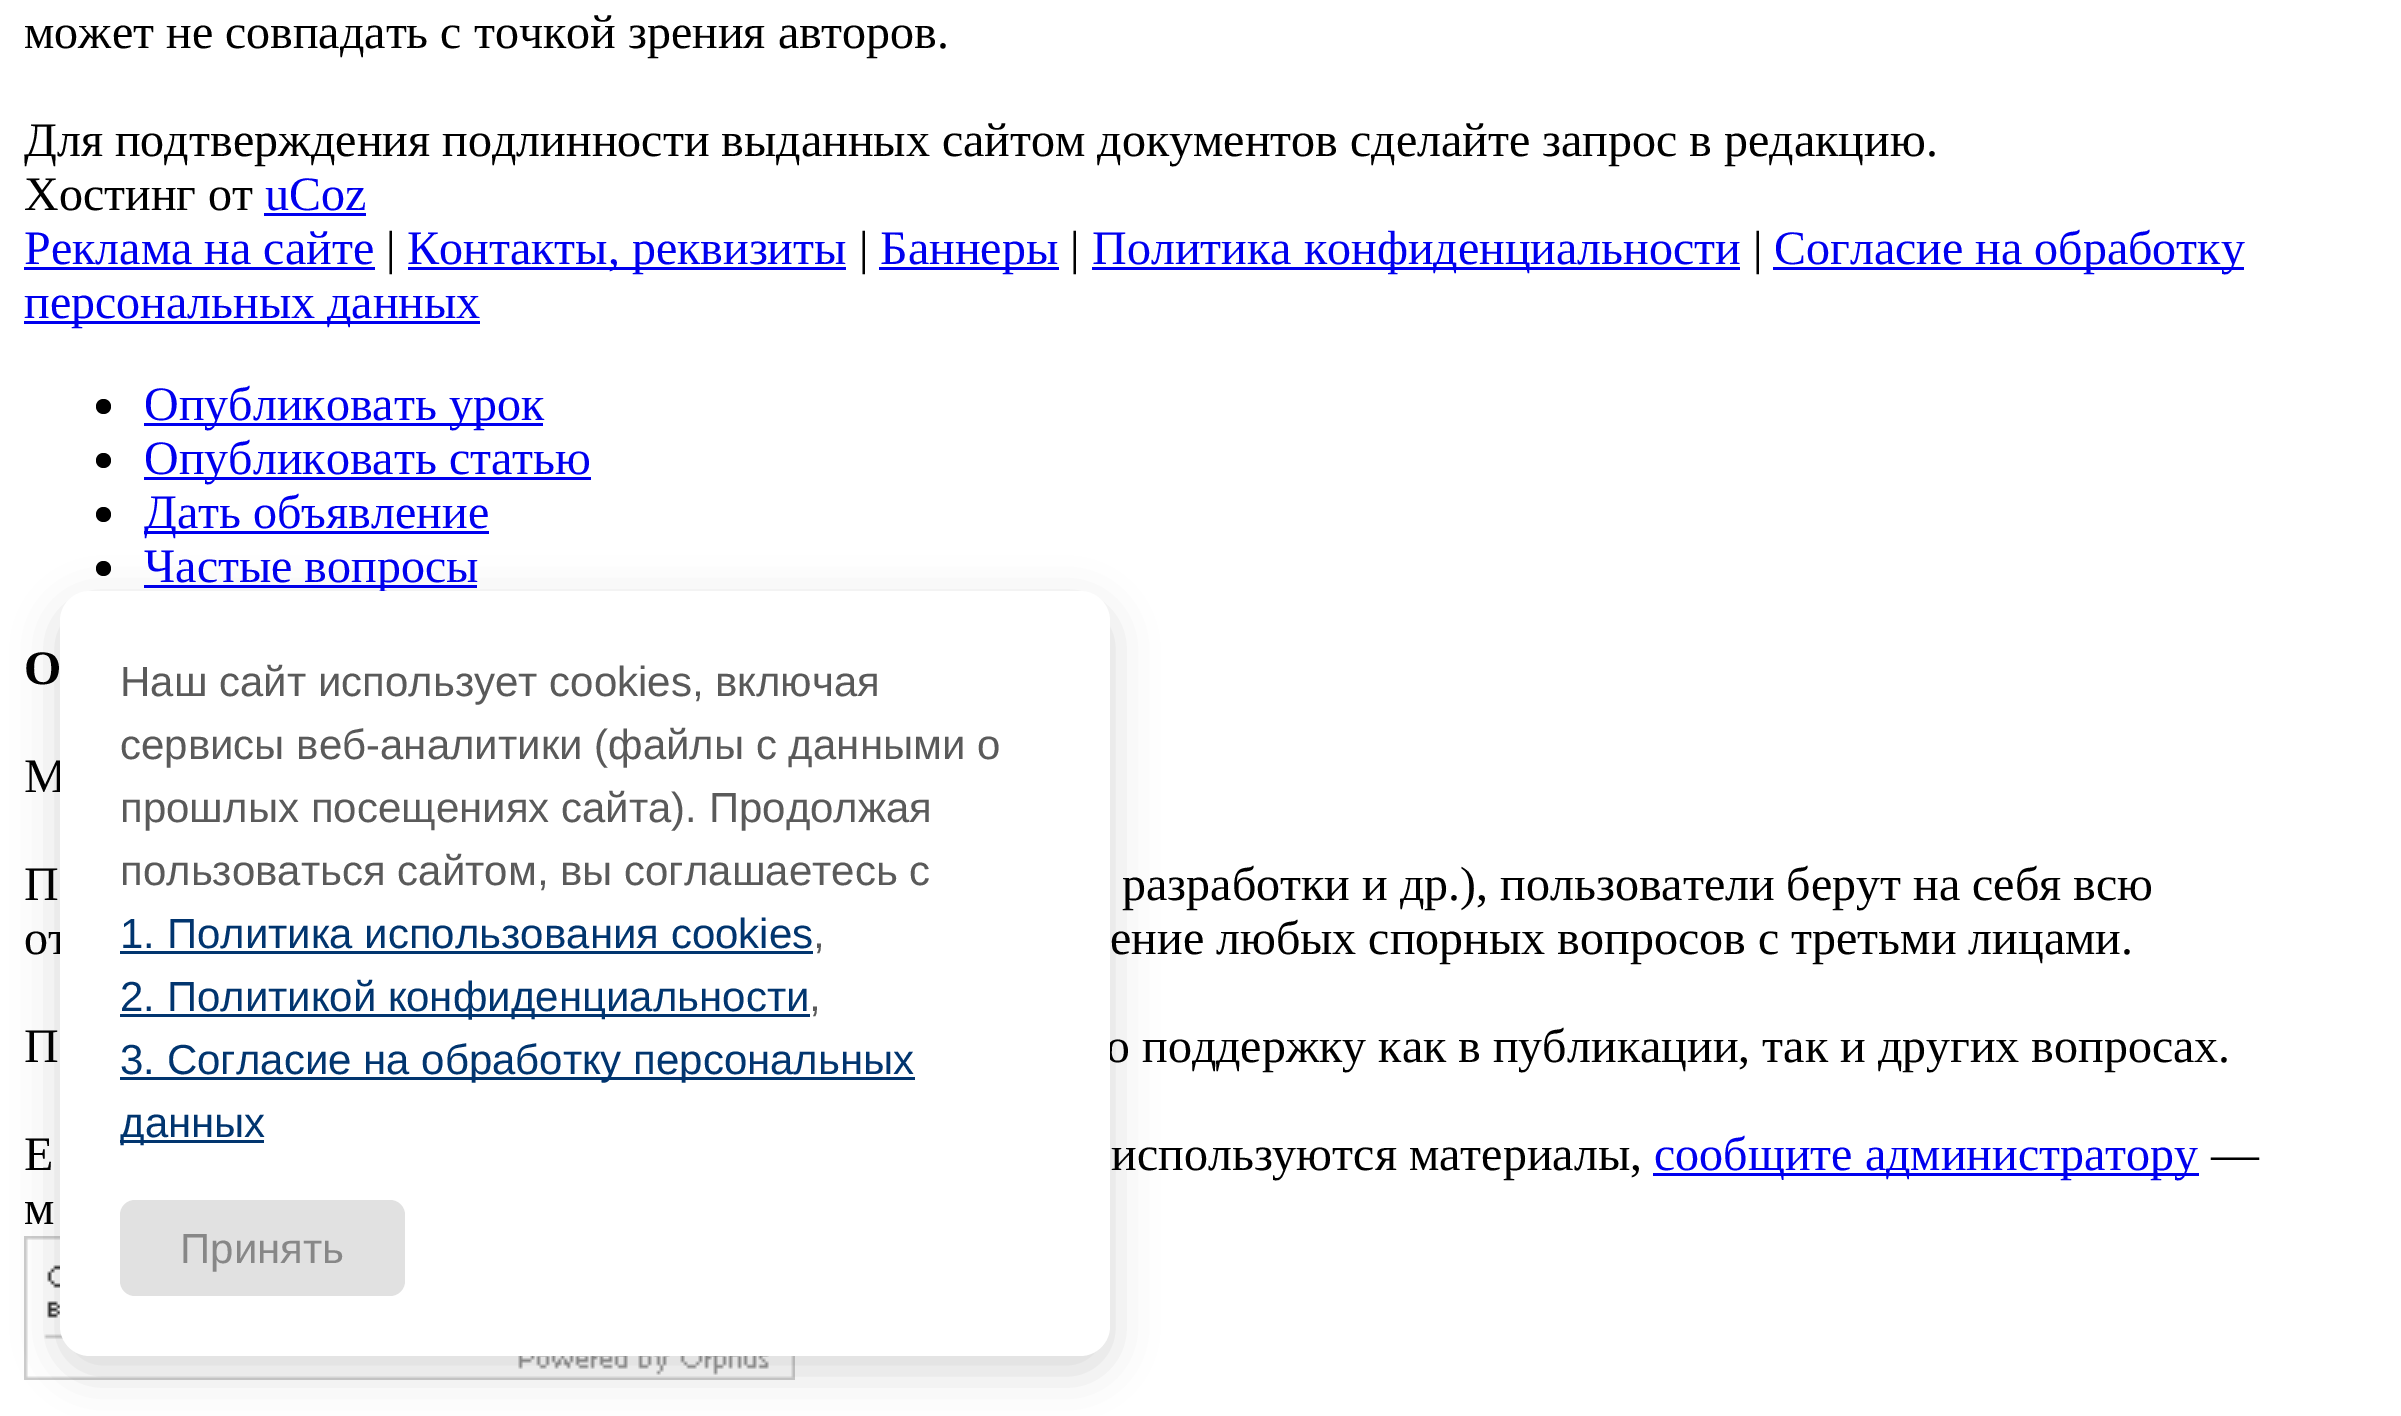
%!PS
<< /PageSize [2401 1416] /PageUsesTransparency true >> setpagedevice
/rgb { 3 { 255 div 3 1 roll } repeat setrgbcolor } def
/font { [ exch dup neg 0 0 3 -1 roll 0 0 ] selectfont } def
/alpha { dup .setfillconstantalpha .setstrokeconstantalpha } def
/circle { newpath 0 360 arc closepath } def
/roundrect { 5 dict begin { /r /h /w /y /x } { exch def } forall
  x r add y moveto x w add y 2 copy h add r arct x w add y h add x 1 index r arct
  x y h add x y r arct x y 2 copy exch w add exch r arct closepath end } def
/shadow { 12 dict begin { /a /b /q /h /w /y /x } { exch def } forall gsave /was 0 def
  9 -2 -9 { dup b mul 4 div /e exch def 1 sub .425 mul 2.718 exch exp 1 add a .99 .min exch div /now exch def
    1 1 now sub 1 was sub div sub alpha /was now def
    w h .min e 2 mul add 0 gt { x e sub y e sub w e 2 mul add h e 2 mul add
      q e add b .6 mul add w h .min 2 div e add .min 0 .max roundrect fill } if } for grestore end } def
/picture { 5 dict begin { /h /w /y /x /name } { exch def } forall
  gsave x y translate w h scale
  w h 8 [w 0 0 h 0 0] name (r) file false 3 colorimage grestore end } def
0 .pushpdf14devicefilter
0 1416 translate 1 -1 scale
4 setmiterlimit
255 255 255 rgb
0 0 2401 1416 rectfill
[
  [264 213 102 3 0 0 238]
  [24 267 351 3 0 0 238]
  [408 267 438 3 0 0 238]
  [879 267 180 3 0 0 238]
  [1092 267 648 3 0 0 238]
  [1773 267 471 3 0 0 238]
  [24 321 456 3 0 0 238]
] { aload pop rgb rectfill } forall
0 0 0 rgb
103.5 406.5 7.5 circle fill
0 0 238 rgb
144 423 399 3 rectfill
0 0 0 rgb
103.5 460.5 7.5 circle fill
0 0 238 rgb
144 477 447 3 rectfill
0 0 0 rgb
103.5 514.5 7.5 circle fill
0 0 238 rgb
144 531 345 3 rectfill
0 0 0 rgb
103.5 568.5 7.5 circle fill
0 0 238 rgb
144 585 333 3 rectfill
1653 1173 546 3 rectfill
(img/1.rgb) 24 1236 771 144 picture
0 0 0 rgb
60 606 1050 765 30 22.5 0.15 shadow
/LiberationSerif-Regular 48 font
[
  [(может не совпадать с точкой зрения авторов.) 24 48]
  [(Для подтверждения подлинности выданных сайтом документов сделайте запрос в редакцию.) 24 156]
  [(Хостинг от) 24 210]
] { aload pop moveto show } forall
0 0 238 rgb
265 210 moveto (uCoz) show
24 264 moveto (Реклама на сайте) show
0 0 0 rgb
386 264 moveto (|) show
0 0 238 rgb
407 264 moveto (Контакты, реквизиты) show
0 0 0 rgb
859 264 moveto (|) show
0 0 238 rgb
880 264 moveto (Баннеры) show
0 0 0 rgb
1070 264 moveto (|) show
0 0 238 rgb
1092 264 moveto (Политика конфиденциальности) show
0 0 0 rgb
1753 264 moveto (|) show
0 0 238 rgb
[
  [(Согласие на обработку) 1774 264]
  [(персональных данных) 24 318]
  [(Опубликовать урок) 144 420]
  [(Опубликовать статью) 144 474]
  [(Дать объявление) 144 528]
  [(Частые вопросы) 144 582]
] { aload pop moveto show } forall
/LiberationSerif-Bold 48 font
0 0 0 rgb
24 684 moveto (О) show
/LiberationSerif-Regular 48 font
[
  [(М) 24 792]
  [(П) 24 900]
  [(разработки и др.\), пользователи берут на себя всю) 1122 900]
  [(от) 24 954]
  [(ение любых спорных вопросов с третьми лицами.) 1110 954]
  [(П) 24 1062]
  [(ю поддержку как в публикации, так и других вопросах.) 1094 1062]
  [(Е) 24 1170]
  [(используются материалы,) 1111 1170]
] { aload pop moveto show } forall
0 0 238 rgb
1654 1170 moveto (сообщите администратору) show
0 0 0 rgb
2211 1170 moveto (—) show
24 1224 moveto (м) show
255 255 255 rgb
60 591 1050 765 30 roundrect fill
/LiberationSans-Regular 42 font
90 90 90 rgb
[
  [(Наш сайт использует cookies, включая) 120 696]
  [(сервисы веб-аналитики \(файлы с данными о) 120 759]
  [(прошлых посещениях сайта\). Продолжая) 120 822]
  [(пользоваться сайтом, вы соглашаетесь с) 120 885]
] { aload pop moveto show } forall
1 53 111 rgb
120 948 moveto (1. Политика использования cookies) show
120 951 693 3 rectfill
90 90 90 rgb
813 948 moveto (,) show
1 53 111 rgb
120 1014 690 3 rectfill
120 1011 moveto (2. Политикой конфиденциальности) show
90 90 90 rgb
809 1011 moveto (,) show
1 53 111 rgb
120 1077 795 3 rectfill
120 1074 moveto (3. Согласие на обработку персональных) show
120 1140 144 3 rectfill
120 1137 moveto (данных) show
225 225 225 rgb
120 1200 285 96 15 roundrect fill
135 135 135 rgb
180 1263 moveto (Принять) show
.poppdf14devicefilter showpage
